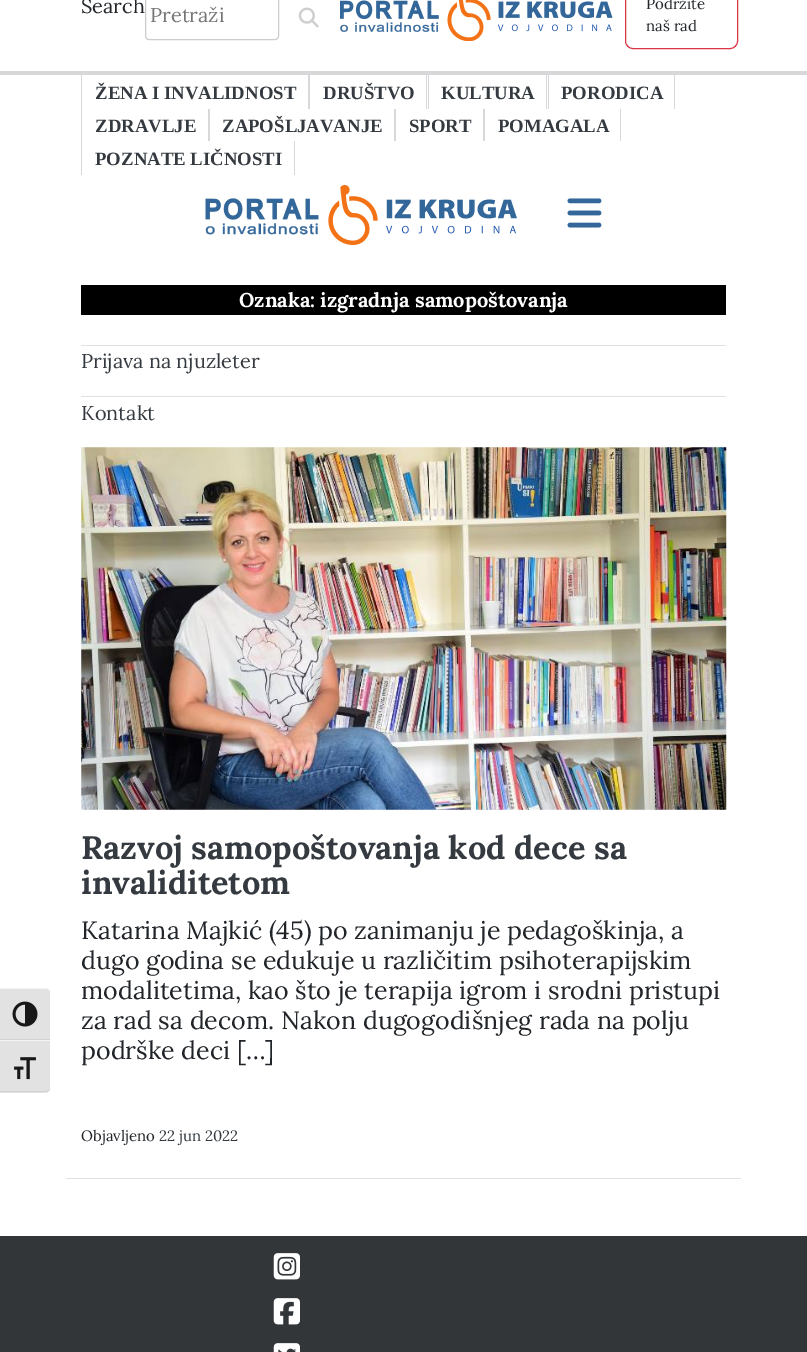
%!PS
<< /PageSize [807 1352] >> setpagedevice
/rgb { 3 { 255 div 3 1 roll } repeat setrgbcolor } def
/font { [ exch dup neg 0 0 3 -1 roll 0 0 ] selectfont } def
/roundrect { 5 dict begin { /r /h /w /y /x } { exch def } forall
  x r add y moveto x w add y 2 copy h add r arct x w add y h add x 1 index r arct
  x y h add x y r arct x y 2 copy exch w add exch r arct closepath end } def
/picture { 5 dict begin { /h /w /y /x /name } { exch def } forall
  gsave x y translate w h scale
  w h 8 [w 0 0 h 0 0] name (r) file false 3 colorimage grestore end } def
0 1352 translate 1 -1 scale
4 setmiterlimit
255 255 255 rgb
0 0 807 1352 rectfill
226 226 226 rgb
0 988 moveto 45 988 lineto 48 988 50 990 50 993 curveto 50 1040 lineto 0 1040 lineto closepath fill
245 245 245 rgb
0 989 moveto 45 989 lineto 48 989 50 990 50 992 curveto 50 990 48 988 45 988 curveto 0 988 lineto closepath fill
210 210 210 rgb
0 1039 50 1 rectfill
(img/1.rgb) 12 1001 26 26 picture
226 226 226 rgb
0 1040 moveto 50 1040 lineto 50 1088 lineto 50 1091 48 1093 45 1093 curveto 0 1093 lineto closepath fill
245 245 245 rgb
0 1040 50 1 rectfill
210 210 210 rgb
0 1091 moveto 0 1092 lineto 45 1092 lineto 48 1092 50 1090 50 1088 curveto 50 1090 48 1091 45 1091 curveto closepath fill
(img/2.rgb) 14 1057 22 23 picture
204 204 204 rgb
145.5 -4.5 133 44 3.5 roundrect stroke
(img/3.rgb) 298 7 21 21 picture
(img/4.rgb) 340 0 273 41 picture
220 53 69 rgb
625.5 -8.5 112 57 7.5 roundrect stroke
[
  [0 71 807 4 216 216 218]
  [308 75 2 34 216 216 218]
  [81 75 1 100 216 216 218]
  [426 75 1 34 216 216 218]
  [546 75 1 34 216 216 218]
  [428 75 1 34 216 216 218]
  [674 75 1 34 216 216 218]
  [548 75 1 34 216 216 218]
  [208 109 2 32 216 216 218]
  [394 109 2 32 216 216 218]
  [483 109 2 32 216 216 218]
  [620 109 1 32 216 216 218]
  [294 141 1 34 216 216 218]
] { aload pop rgb rectfill } forall
(img/5.rgb) 205 185 312 60 picture
(img/6.rgb) 567 198 35 30 picture
[
  [81 285 645 30 0 0 0]
  [81 345 645 1 222 226 230]
  [81 396 645 1 222 226 230]
  [66 1178 675 1 222 226 230]
] { aload pop rgb rectfill } forall
(img/7.rgb) 81 447 646 363 picture
51 54 57 rgb
0 1236 807 116 rectfill
(img/8.rgb) 273 1253 27 27 picture
(img/9.rgb) 273 1298 27 27 picture
(img/10.rgb) 273 1343 27 9 picture
/Lora-Regular 20 font
33 37 41 rgb
81 13 moveto (Search) show
117 117 117 rgb
150 22 moveto (Pretraži) show
/Lora-Regular 15 font
33 37 41 rgb
646 9 moveto (Podržite) show
646 31 moveto (naš rad) show
/LiberationSerif-Bold 18.75 font
52 58 64 rgb
[
  [(ŽENA I INVALIDNOST) 95 99]
  [(DRUŠTVO) 323 99]
  [(KULTURA) 441 99]
  [(PORODICA) 561 99]
  [(ZDRAVLJE) 95 132]
  [(ZAPOŠLJAVANJE) 222 132]
  [(SPORT) 409 132]
  [(POMAGALA) 498 132]
  [(POZNATE LIČNOSTI) 95 165]
] { aload pop moveto show } forall
/Lora-Bold 20 font
255 255 255 rgb
239 307 moveto (Oznaka: izgradnja samopoštovanja) show
/Lora-Regular 20 font
52 58 64 rgb
81 368 moveto (Prijava na njuzleter) show
81 420 moveto (Kontakt) show
/Lora-Bold 32.5 font
81 859 moveto (Razvoj samopoštovanja kod dece sa) show
81 894 moveto (invaliditetom) show
/Lora-Regular 25 font
33 37 41 rgb
[
  [(Katarina Majkić \(45\) po zanimanju je pedagoškinja, a) 81 939]
  [(dugo godina se edukuje u različitim psihoterapijskim) 81 969]
  [(modalitetima, kao što je terapija igrom i srodni pristupi) 81 999]
  [(za rad sa decom. Nakon dugogodišnjeg rada na polju) 81 1029]
  [(podrške deci […]) 81 1059]
] { aload pop moveto show } forall
/Lora-Regular 15 font
81 1141 moveto (Objavljeno) show
52 58 64 rgb
159 1141 moveto (22 jun 2022) show
showpage
